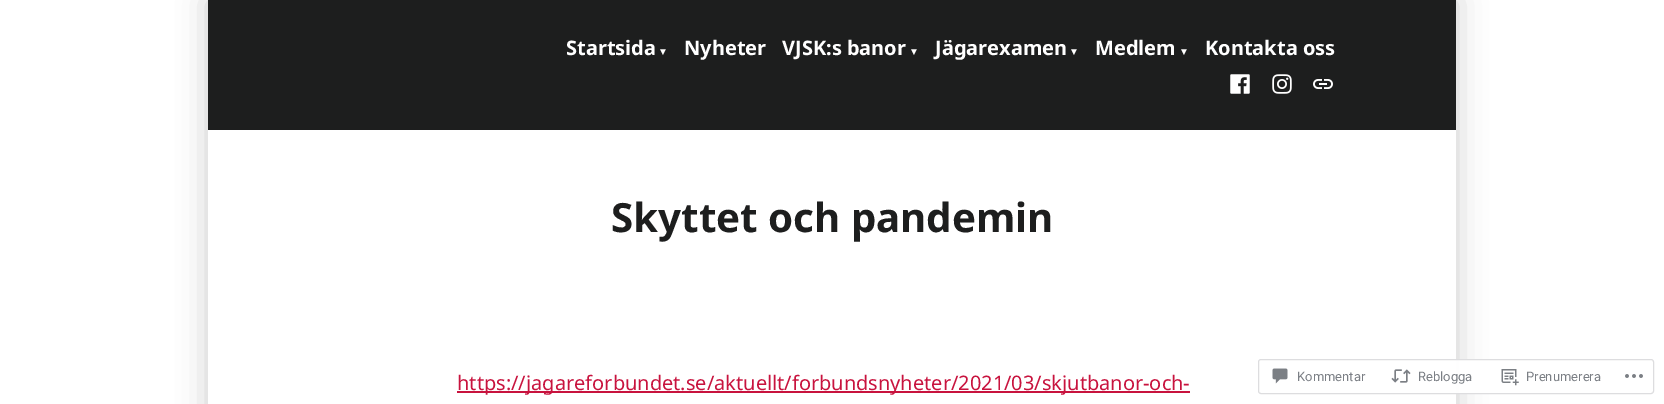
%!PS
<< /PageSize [1664 404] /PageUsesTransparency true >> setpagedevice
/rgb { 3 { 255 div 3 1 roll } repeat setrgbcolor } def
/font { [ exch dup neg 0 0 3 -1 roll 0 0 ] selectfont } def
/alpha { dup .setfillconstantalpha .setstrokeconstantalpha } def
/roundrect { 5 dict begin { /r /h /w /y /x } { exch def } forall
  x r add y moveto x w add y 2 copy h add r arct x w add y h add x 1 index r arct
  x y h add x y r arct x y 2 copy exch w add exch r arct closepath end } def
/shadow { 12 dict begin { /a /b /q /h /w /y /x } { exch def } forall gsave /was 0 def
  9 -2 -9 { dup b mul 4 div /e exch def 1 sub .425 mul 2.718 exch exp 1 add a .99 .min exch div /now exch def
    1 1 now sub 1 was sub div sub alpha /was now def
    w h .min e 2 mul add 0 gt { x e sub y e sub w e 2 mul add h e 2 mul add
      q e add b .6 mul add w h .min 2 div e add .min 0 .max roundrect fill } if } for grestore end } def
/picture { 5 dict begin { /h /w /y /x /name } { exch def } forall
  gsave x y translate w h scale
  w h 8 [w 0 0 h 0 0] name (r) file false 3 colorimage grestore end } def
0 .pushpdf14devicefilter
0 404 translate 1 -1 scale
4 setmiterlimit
255 255 255 rgb
0 0 1664 404 rectfill
gsave
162 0 moveto 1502 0 lineto 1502 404 lineto 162 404 lineto closepath 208 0 moveto 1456 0 lineto 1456 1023 lineto 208 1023 lineto closepath eoclip newpath
0 0 0 rgb
208 0 1248 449 0 15 0.2 shadow
grestore
29 30 30 rgb
208 0 1248 130 rectfill
(img/1.rgb) 1230 74 20 20 picture
(img/2.rgb) 1272 74 20 20 picture
(img/3.rgb) 1313 79 20 10 picture
200 19 62 rgb
457 391 733 2 rectfill
0.98 alpha
255 255 255 rgb
1258.5 359.5 395 34 2.5 roundrect fill
1 alpha
221 221 223 rgb
1258.5 359.5 395 34 2.5 roundrect stroke
(img/4.rgb) 1272 368 16 16 picture
(img/5.rgb) 1391 369 20 14 picture
(img/6.rgb) 1501 369 18 17 picture
(img/7.rgb) 1625 374 18 4 picture
/NotoSans-Bold 20 font
255 255 255 rgb
566 55 moveto (Startsida) show
/LiberationSans-Bold 10 font
658 55 moveto (▼) show
/NotoSans-Bold 20 font
684 55 moveto (Nyheter) show
782 55 moveto (VJSK:s banor) show
/LiberationSans-Bold 10 font
909 55 moveto (▼) show
/NotoSans-Bold 20 font
935 55 moveto (Jägarexamen) show
/LiberationSans-Bold 10 font
1069 55 moveto (▼) show
/NotoSans-Bold 20 font
1095 55 moveto (Medlem) show
/LiberationSans-Bold 10 font
1179 55 moveto (▼) show
/NotoSans-Bold 20 font
1205 55 moveto (Kontakta oss) show
/NotoSans-Bold 40.25 font
29 30 30 rgb
611 232 moveto (Skyttet och pandemin) show
/NotoSans-Regular 20 font
200 19 62 rgb
457 390 moveto (https://jagareforbundet.se/aktuellt/forbundsnyheter/2021/03/skjutbanor-och-) show
/Roboto-Regular 13 font
123 127 133 rgb
[
  [(Kommentar) 1297 381]
  [(Reblogga) 1418 381]
  [(Prenumerera) 1526 381]
] { aload pop moveto show } forall
.poppdf14devicefilter showpage
